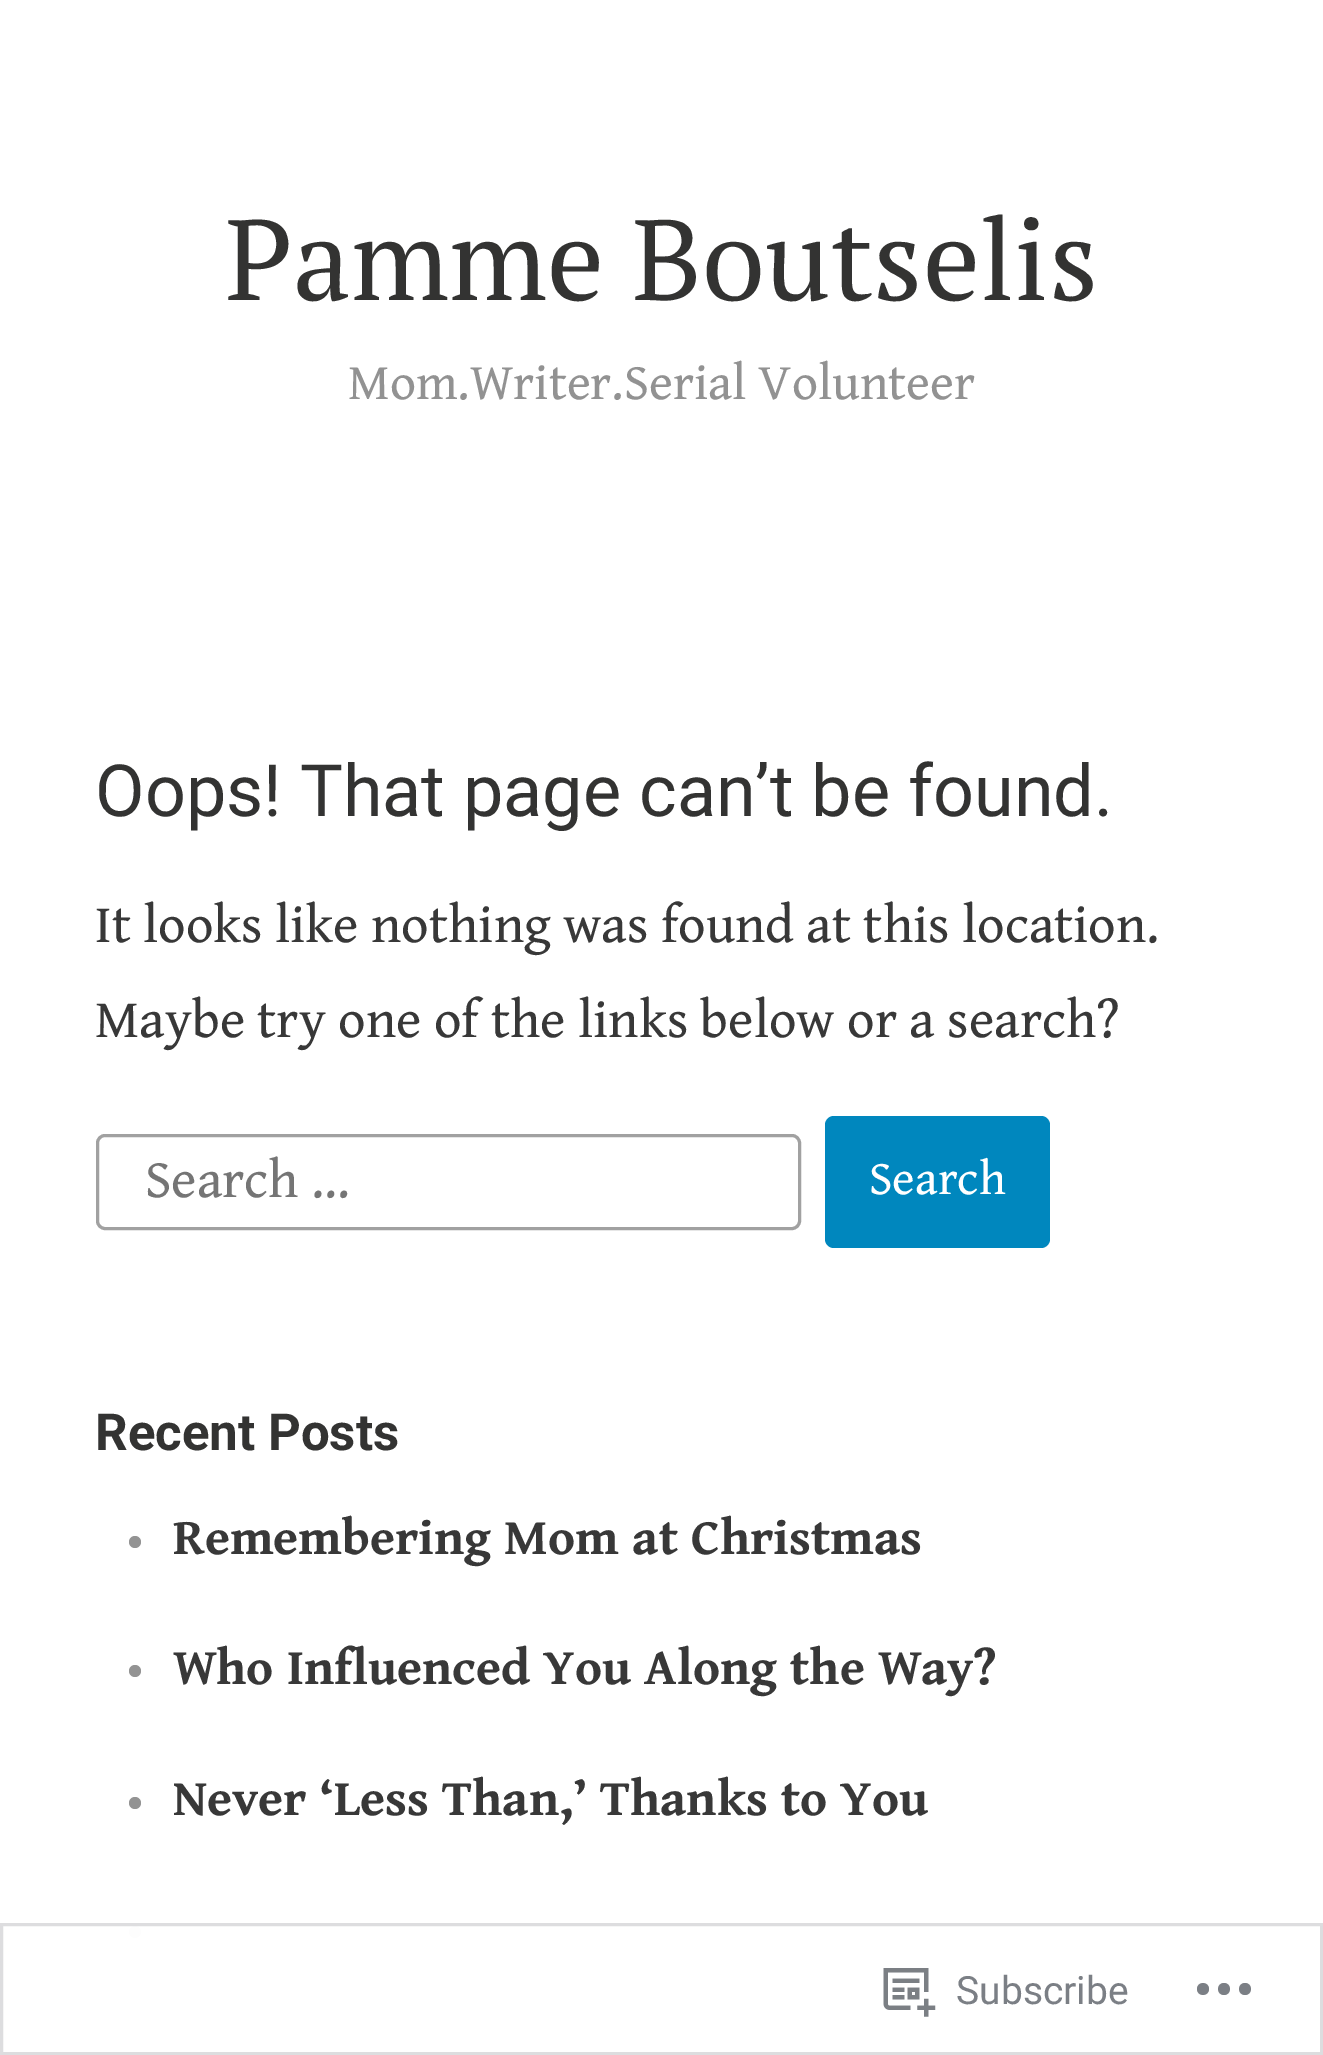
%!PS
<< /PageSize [1323 2055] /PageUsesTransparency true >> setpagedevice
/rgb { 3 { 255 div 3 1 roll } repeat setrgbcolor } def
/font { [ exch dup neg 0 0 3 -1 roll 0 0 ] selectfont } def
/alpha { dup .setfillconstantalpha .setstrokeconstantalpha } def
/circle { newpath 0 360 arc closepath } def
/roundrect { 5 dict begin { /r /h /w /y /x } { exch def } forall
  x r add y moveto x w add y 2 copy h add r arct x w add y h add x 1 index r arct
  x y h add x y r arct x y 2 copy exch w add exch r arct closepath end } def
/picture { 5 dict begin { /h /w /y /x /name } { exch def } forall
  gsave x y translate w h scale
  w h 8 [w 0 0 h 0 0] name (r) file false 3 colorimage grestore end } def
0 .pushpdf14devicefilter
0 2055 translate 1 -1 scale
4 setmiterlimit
255 255 255 rgb
0 0 1323 2055 rectfill
161 161 161 rgb
3 setlinewidth
97.5 1135.5 702 93 7.5 roundrect stroke
0 135 190 rgb
825 1116 225 132 9 roundrect fill
147 147 147 rgb
135 1542 6 circle fill
135 1671 6 circle fill
135 1803 6 circle fill
135 1932 6 circle fill
0.98 alpha
255 255 255 rgb
129 1926 12 12 rectfill
220 220 222 rgb
1.5 1924.5 1320 129 rectstroke
1 alpha
(img/1.rgb) 883 1968 53 49 picture
123 127 133 rgb
1209 1989 moveto 1209 1997 1197 1997 1197 1989 curveto 1197 1981 1209 1981 1209 1989 curveto closepath 1245 1983 moveto 1237 1983 1237 1995 1245 1995 curveto 1253 1995 1253 1983 1245 1983 curveto closepath 1224 1983 moveto 1216 1983 1216 1995 1224 1995 curveto 1232 1995 1232 1983 1224 1983 curveto closepath fill
/PTSerif-Regular 114 font
51 51 50 rgb
225 300 moveto (Pamme Boutselis) show
/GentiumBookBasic-Regular 51 font
146 146 146 rgb
348 399 moveto (Mom.Writer.Serial Volunteer) show
/Roboto-Regular 72 font
51 51 50 rgb
95 816 moveto (Oops! That page can’t be found.) show
/GentiumBookBasic-Regular 54 font
56 56 56 rgb
95 942 moveto (It looks like nothing was found at this location.) show
95 1037 moveto (Maybe try one of the links below or a search?) show
117 117 117 rgb
145 1197 moveto (Search …) show
/GentiumBookBasic-Regular 48 font
255 255 255 rgb
869 1194 moveto (Search) show
/Roboto-Bold 51 font
51 51 50 rgb
95 1450 moveto (Recent Posts) show
/GentiumBookBasic-Bold 51 font
56 56 56 rgb
[
  [(Remembering Mom at Christmas) 173 1554]
  [(Who Influenced You Along the Way?) 173 1684]
  [(Never ‘Less Than,’ Thanks to You) 173 1815]
] { aload pop moveto show } forall
/Roboto-Regular 39 font
123 127 133 rgb
956 2004 moveto (Subscribe) show
.poppdf14devicefilter showpage
